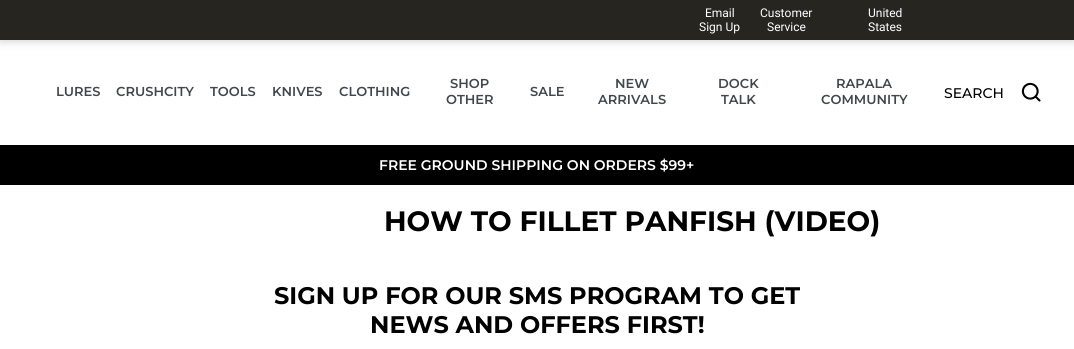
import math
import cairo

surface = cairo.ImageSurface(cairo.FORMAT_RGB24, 1074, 349)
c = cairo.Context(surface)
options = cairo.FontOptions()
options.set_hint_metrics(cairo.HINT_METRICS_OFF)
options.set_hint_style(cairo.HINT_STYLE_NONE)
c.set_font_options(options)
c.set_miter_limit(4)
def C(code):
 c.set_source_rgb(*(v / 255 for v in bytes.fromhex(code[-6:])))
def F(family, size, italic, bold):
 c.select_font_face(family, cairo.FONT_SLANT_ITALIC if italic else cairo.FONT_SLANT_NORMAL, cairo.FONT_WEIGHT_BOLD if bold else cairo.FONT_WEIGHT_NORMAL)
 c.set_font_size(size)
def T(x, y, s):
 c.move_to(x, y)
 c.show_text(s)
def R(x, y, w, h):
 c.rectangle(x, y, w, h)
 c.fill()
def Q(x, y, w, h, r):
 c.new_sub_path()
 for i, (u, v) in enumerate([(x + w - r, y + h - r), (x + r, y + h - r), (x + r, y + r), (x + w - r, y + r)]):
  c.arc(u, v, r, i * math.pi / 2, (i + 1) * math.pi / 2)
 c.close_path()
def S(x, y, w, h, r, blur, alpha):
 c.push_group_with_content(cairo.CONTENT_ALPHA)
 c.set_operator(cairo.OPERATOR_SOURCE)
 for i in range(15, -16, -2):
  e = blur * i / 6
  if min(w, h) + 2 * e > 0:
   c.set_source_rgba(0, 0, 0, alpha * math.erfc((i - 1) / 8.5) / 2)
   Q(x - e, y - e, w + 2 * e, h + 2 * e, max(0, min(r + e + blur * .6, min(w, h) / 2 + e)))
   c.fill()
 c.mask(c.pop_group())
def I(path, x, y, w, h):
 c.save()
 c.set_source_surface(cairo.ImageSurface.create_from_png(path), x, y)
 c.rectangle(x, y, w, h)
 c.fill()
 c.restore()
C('ffffff')
c.paint()
C('323232')
S(0,2,1074,40,0,4,.2)
C('27251f')
R(0,0,1074,40)
F('Roboto',12,0,0)
C('ffffff')
T(705,17,'Email')
T(699,31,'Sign Up')
T(760,17,'Customer')
T(767,31,'Service')
T(868,17,'United')
T(868,31,'States')
F('Montserrat Thin',13,0,0)
C('43464e')
T(56,96,'LURES')
T(116,96,'CRUSHCITY')
T(210,96,'TOOLS')
T(272,96,'KNIVES')
T(339,96,'CLOTHING')
T(450,88,'SHOP')
T(446,104,'OTHER')
T(530,96,'SALE')
T(615,88,'NEW')
T(598,104,'ARRIVALS')
T(718,88,'DOCK')
T(721,104,'TALK')
T(836,88,'RAPALA')
T(821,104,'COMMUNITY')
F('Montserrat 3 Thin',14,0,0)
C('000000')
T(944,98,'SEARCH')
I('1.png',1021,82,20,20)
R(0,145,1074,40)
F('Montserrat Thin',14,0,0)
C('ffffff')
T(379,170,'FREE GROUND SHIPPING ON ORDERS $99+')
F('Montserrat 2 Thin',28,0,0)
C('000000')
T(384,231,'HOW TO FILLET PANFISH (VIDEO)')
F('Montserrat 2 Thin',24,0,0)
T(274,304,'SIGN UP FOR OUR SMS PROGRAM TO GET')
T(370,333,'NEWS AND OFFERS FIRST!')
surface.write_to_png('o.png')
